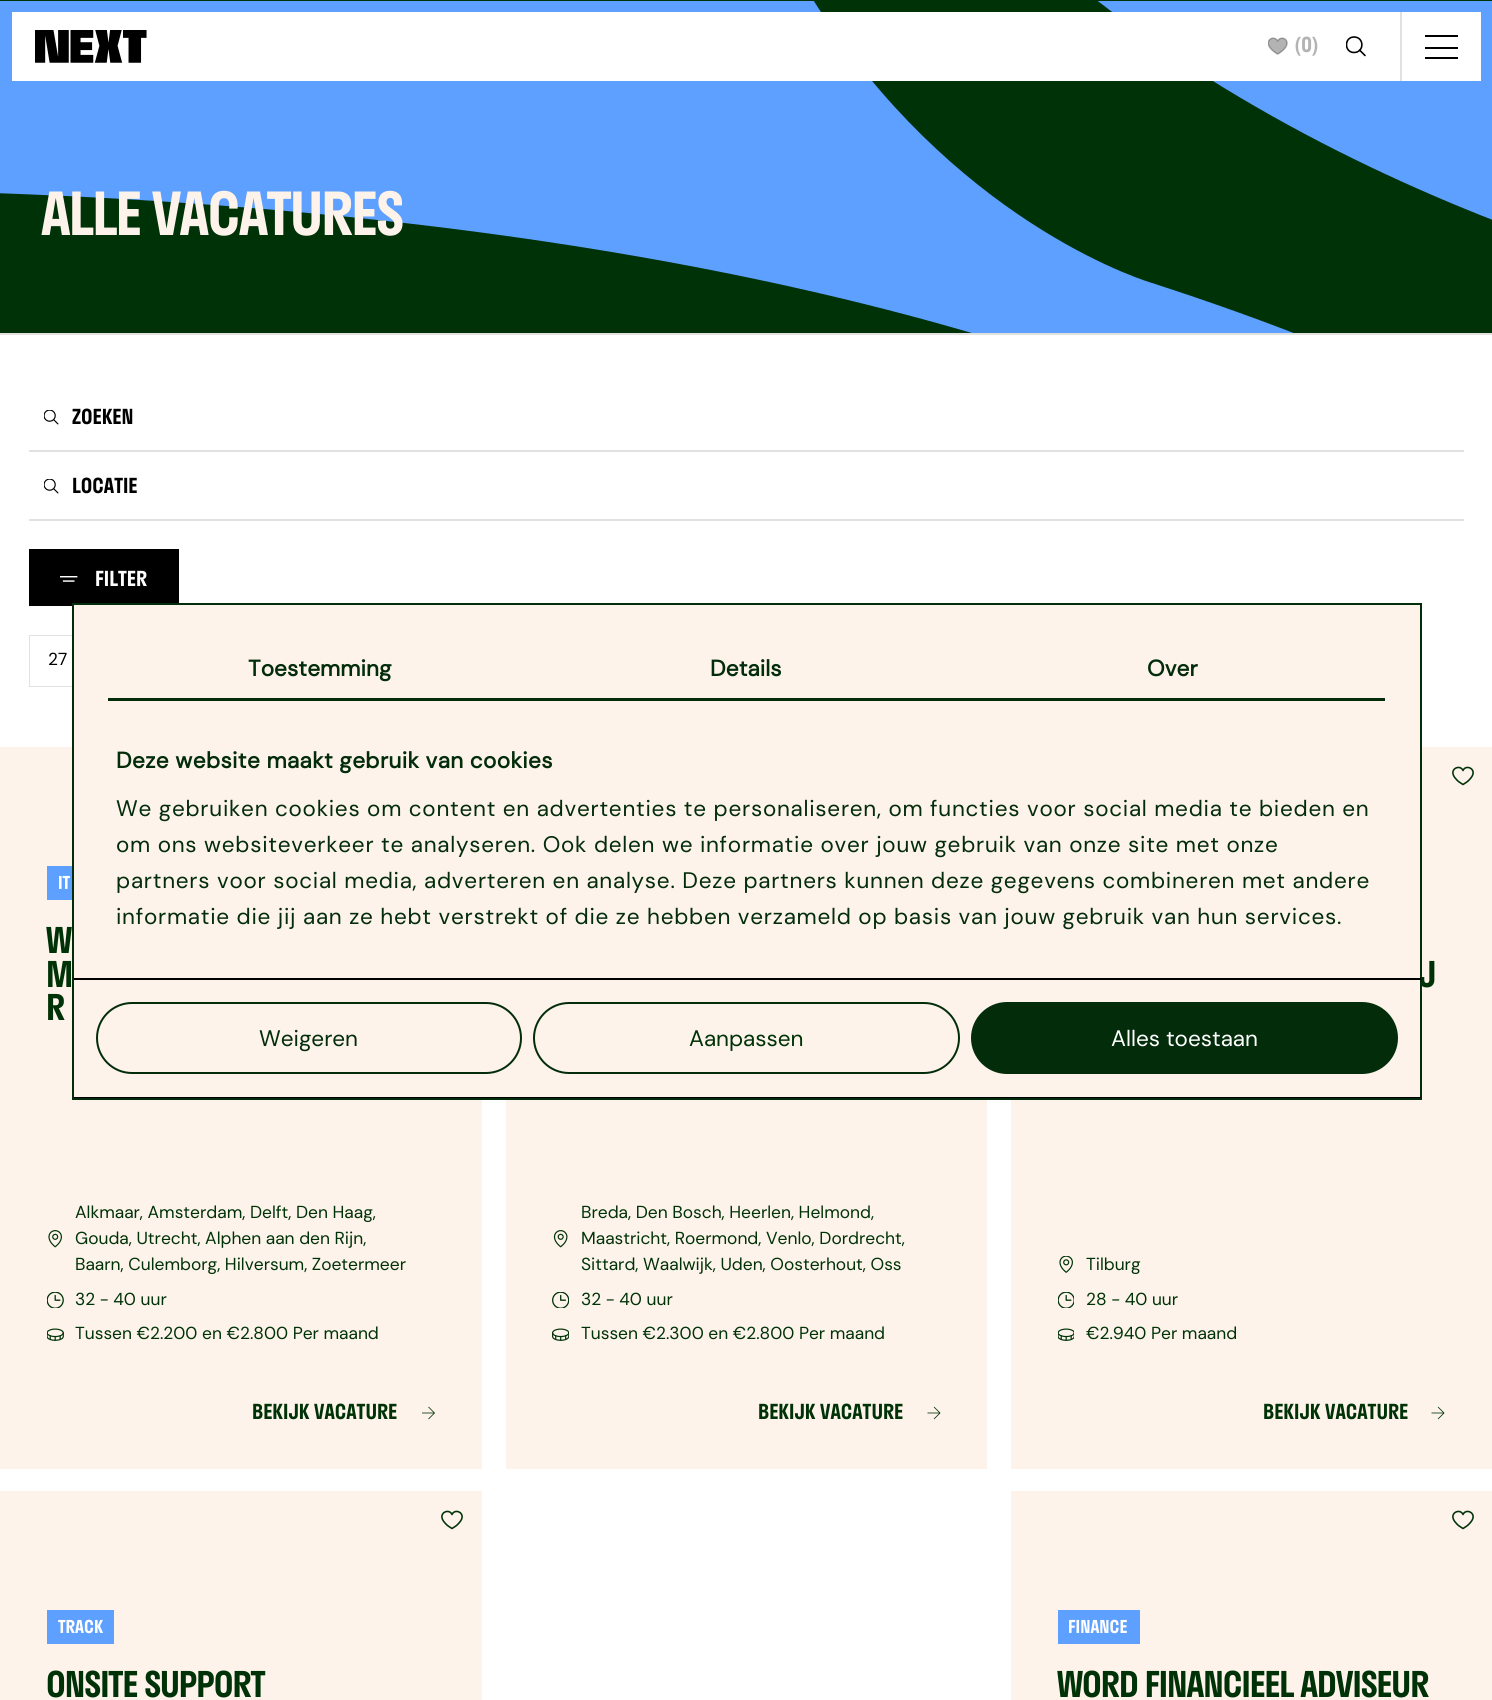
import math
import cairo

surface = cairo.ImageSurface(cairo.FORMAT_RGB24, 1492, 1700)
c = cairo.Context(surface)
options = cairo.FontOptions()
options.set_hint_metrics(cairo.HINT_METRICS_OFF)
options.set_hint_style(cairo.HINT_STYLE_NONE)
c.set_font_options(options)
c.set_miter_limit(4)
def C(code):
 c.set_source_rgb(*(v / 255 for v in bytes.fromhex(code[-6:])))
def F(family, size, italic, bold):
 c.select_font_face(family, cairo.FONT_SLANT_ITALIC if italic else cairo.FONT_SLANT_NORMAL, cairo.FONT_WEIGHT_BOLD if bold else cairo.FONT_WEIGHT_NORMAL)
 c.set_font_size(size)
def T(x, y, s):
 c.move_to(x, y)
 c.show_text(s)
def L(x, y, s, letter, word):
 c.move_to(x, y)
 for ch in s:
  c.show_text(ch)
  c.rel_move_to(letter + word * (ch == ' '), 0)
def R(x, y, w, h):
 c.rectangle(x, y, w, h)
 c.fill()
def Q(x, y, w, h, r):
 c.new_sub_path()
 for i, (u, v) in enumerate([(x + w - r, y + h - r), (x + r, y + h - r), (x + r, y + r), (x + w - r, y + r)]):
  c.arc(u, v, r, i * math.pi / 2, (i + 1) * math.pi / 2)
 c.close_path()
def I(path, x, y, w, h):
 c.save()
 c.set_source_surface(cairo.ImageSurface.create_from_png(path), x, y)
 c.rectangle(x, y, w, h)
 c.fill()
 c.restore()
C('ffffff')
c.paint()
C('003207')
R(0,0,1492,333)
c.save()
c.rectangle(0,1,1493,332)
c.clip()
C('5da0ff')
c.new_path()
c.move_to(752,-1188)
c.curve_to(393,153,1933,338,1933,338)
c.line_to(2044,-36)
c.curve_to(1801,-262,1230,-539,797,-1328)
c.curve_to(364,-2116,-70,-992,-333,-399)
c.curve_to(-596,193,-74,191,-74,191)
c.curve_to(1441,228,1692,778,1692,778)
c.curve_to(-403,216,-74,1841,-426,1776)
c.curve_to(-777,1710,85,660,85,660)
c.curve_to(-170,620,-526,430,-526,430)
c.curve_to(-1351,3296,1365,1271,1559,1084)
c.curve_to(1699,948,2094,588,1152,283)
c.curve_to(1152,283,415,70,753,-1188)
c.close_path()
c.fill()
c.restore()
C('ffffff')
R(12,12,1469,69)
I('1.png',35,30,112,33)
I('2.png',1268,37,20,18)
F('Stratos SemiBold',20.25,0,0)
C('b3b3b3')
T(1294,52,'(0)')
c.save()
c.rectangle(1346,36,21,21)
c.clip()
c.new_path()
c.move_to(1354,52.5)
c.curve_to(1364.5,52.5,1364.5,37,1354,37)
c.curve_to(1344,37,1344,52.5,1354,52.5)
c.close_path()
c.move_to(1359.5,50)
c.line_to(1365,55.5)
C('000000')
c.set_line_width(1.6)
c.set_line_cap(cairo.LINE_CAP_ROUND)
c.set_line_join(cairo.LINE_JOIN_ROUND)
c.stroke()
c.restore()
C('e1e1e1')
R(1400,12,2,69)
C('000000')
R(1425,35,33,2)
R(1425,47,33,2)
R(1425,57,33,2)
C('e1e1e1')
R(0,333,1492,2)
F('Stratos SemiBold',58,0,0)
C('fdf3ea')
L(41,235,'ALLE VACATURES',-1.75,0)
I('3.png',44,410,15,15)
C('e1e1e1')
R(29,450,1435,2)
F('Stratos SemiBold',20.25,0,0)
C('000000')
T(72,424,'ZOEKEN')
I('3.png',44,479,15,15)
C('e1e1e1')
R(29,519,1435,2)
C('000000')
T(72,493,'LOCATIE')
R(29,549,150,57)
I('4.png',60,576,18,6)
C('ffffff')
T(95,586,'FILTER')
c.rectangle(30,636,607,50)
C('e1e1e1')
c.stroke()
C('ffffff')
R(30,636,42,50)
F('DM Sans',17.4,0,0)
C('000000')
T(48,665,'27')
C('fdf3ea')
R(0,747,482,722)
C('5da0ff')
R(47,866,25,34)
F('Stratos SemiBold',17.4,0,0)
C('ffffff')
T(58,889,'IT')
F('Stratos SemiBold',34.75,0,0)
C('003207')
L(46,953,'W',-1,0)
L(46,987,'M',-1,0)
L(46,1020,'R',-1,0)
I('5.png',48,1230,14,18)
F('DM Sans',17.4,0,0)
T(75,1218,'Alkmaar, Amsterdam, Delft, Den Haag,')
T(75,1244,'Gouda, Utrecht, Alphen aan den Rijn,')
T(75,1270,'Baarn, Culemborg, Hilversum, Zoetermeer')
I('6.png',47,1292,17,16)
T(75,1305,'32 - 40 uur')
I('7.png',47,1328,17,13)
T(75,1339,'Tussen €2.200 en €2.800 Per maand')
F('Stratos SemiBold',20.25,0,0)
T(252,1419,'BEKIJK VACATURE')
c.new_path()
c.move_to(434.5,1413)
c.line_to(422,1413)
c.move_to(428.5,1407)
c.line_to(434.5,1413)
c.line_to(428.5,1419)
c.set_line_width(.8)
c.stroke()
C('fdf3ea')
R(506,1100,481,369)
I('8.png',553,1230,15,18)
F('DM Sans',17.4,0,0)
C('003207')
T(581,1218,'Breda, Den Bosch, Heerlen, Helmond,')
T(581,1244,'Maastricht, Roermond, Venlo, Dordrecht,')
T(581,1270,'Sittard, Waalwijk, Uden, Oosterhout, Oss')
I('9.png',552,1292,17,16)
T(581,1305,'32 - 40 uur')
I('10.png',552,1328,17,13)
T(581,1339,'Tussen €2.300 en €2.800 Per maand')
F('Stratos SemiBold',20.25,0,0)
T(758,1419,'BEKIJK VACATURE')
c.new_path()
c.move_to(940,1413)
c.line_to(927.5,1413)
c.move_to(934,1407)
c.line_to(940,1413)
c.line_to(934,1419)
c.stroke()
C('fdf3ea')
R(1011,747,481,722)
c.new_path()
c.move_to(1463,784.5)
c.curve_to(1460.5,783,1458,781.5,1456,779)
c.curve_to(1447,769.5,1460,763.5,1463,770.5)
c.curve_to(1466,763.5,1479,769.5,1470,779)
c.curve_to(1468,781.5,1465.5,783,1463,784.5)
c.close_path()
C('003207')
c.set_line_width(1.6)
c.set_line_cap(cairo.LINE_CAP_ROUND)
c.set_line_join(cairo.LINE_JOIN_ROUND)
c.stroke()
F('Stratos SemiBold',34.75,0,0)
L(1418,987,'J',-1,0)
I('11.png',1059,1256,14,17)
F('DM Sans',17.4,0,0)
T(1086,1270,'Tilburg')
I('12.png',1058,1292,16,16)
T(1086,1305,'28 - 40 uur')
I('13.png',1058,1328,16,13)
T(1086,1339,'€2.940 Per maand')
F('Stratos SemiBold',20.25,0,0)
T(1263,1419,'BEKIJK VACATURE')
c.new_path()
c.move_to(1444,1413)
c.line_to(1431.5,1413)
c.move_to(1438,1407)
c.line_to(1444,1413)
c.line_to(1438,1419)
c.set_line_width(.8)
c.set_line_cap(cairo.LINE_CAP_BUTT)
c.set_line_join(cairo.LINE_JOIN_MITER)
c.stroke()
C('fdf3ea')
R(0,1491,482,209)
c.new_path()
c.move_to(452,1528.5)
c.curve_to(449.5,1527,447,1525.5,445,1523)
c.curve_to(436,1513.5,449,1507.5,452,1514.5)
c.curve_to(455,1507.5,468,1513.5,459,1523)
c.curve_to(457,1525.5,454.5,1527,452,1528.5)
c.close_path()
C('003207')
c.set_line_width(1.6)
c.set_line_cap(cairo.LINE_CAP_ROUND)
c.set_line_join(cairo.LINE_JOIN_ROUND)
c.stroke()
C('5da0ff')
R(47,1610,67,34)
F('Stratos SemiBold',17.4,0,0)
C('ffffff')
T(58,1633,'TRACK')
F('Stratos SemiBold',34.75,0,0)
C('003207')
L(46,1697,'ONSITE SUPPORT',-1,0)
C('fdf3ea')
R(1011,1491,481,209)
c.new_path()
c.move_to(1463,1528.5)
c.curve_to(1460.5,1527,1458,1525.5,1456,1523)
c.curve_to(1447,1513.5,1460,1507.5,1463,1514.5)
c.curve_to(1466,1507.5,1479,1513.5,1470,1523)
c.curve_to(1468,1525.5,1465.5,1527,1463,1528.5)
c.close_path()
C('003207')
c.stroke()
C('5da0ff')
R(1058,1610,82,34)
F('Stratos SemiBold',17.4,0,0)
C('ffffff')
T(1068,1633,'FINANCE')
F('Stratos SemiBold',34.75,0,0)
C('003207')
L(1057,1697,'WORD FINANCIEEL ADVISEUR',-1,0)
C('fdf3ea')
R(74,605,1346,492)
c.rectangle(73,604,1348,495)
C('032c0b')
c.set_line_width(2)
c.set_line_cap(cairo.LINE_CAP_BUTT)
c.set_line_join(cairo.LINE_JOIN_MITER)
c.stroke()
R(108,698,1277,3)
F('DM Sans',22.5,0,1)
L(248,676,'Toestemming',.1,0)
L(710,676,'Details',.1,0)
L(1147,676,'Over',.1,0)
C('000000')
R(74,978,1347,2)
C('032c0b')
L(116,768,'Deze website maakt gebruik van cookies',.4,0)
F('DM Sans',22.5,0,0)
L(116,816,'We gebruiken cookies om content en advertenties te personaliseren, om functies voor social media te bieden en',.75,0)
L(116,852,'om ons websiteverkeer te analyseren. Ook delen we informatie over jouw gebruik van onze site met onze',.75,0)
L(116,888,'partners voor social media, adverteren en analyse. Deze partners kunnen deze gegevens combineren met andere',.75,0)
L(116,924,'informatie die jij aan ze hebt verstrekt of die ze hebben verzameld op basis van jouw gebruik van hun services.',.75,0)
C('000000')
R(74,1097,1347,1)
Q(97,1003,424,70,35)
C('032c0b')
c.stroke()
T(259,1046,'Weigeren')
Q(534,1003,425,70,35)
c.stroke()
C('003207')
T(689,1046,'Aanpassen')
C('032c0b')
Q(972,1003,425,70,35)
c.fill_preserve()
c.stroke()
C('ffffff')
T(1111,1046,'Alles toestaan')
surface.write_to_png('o.png')
